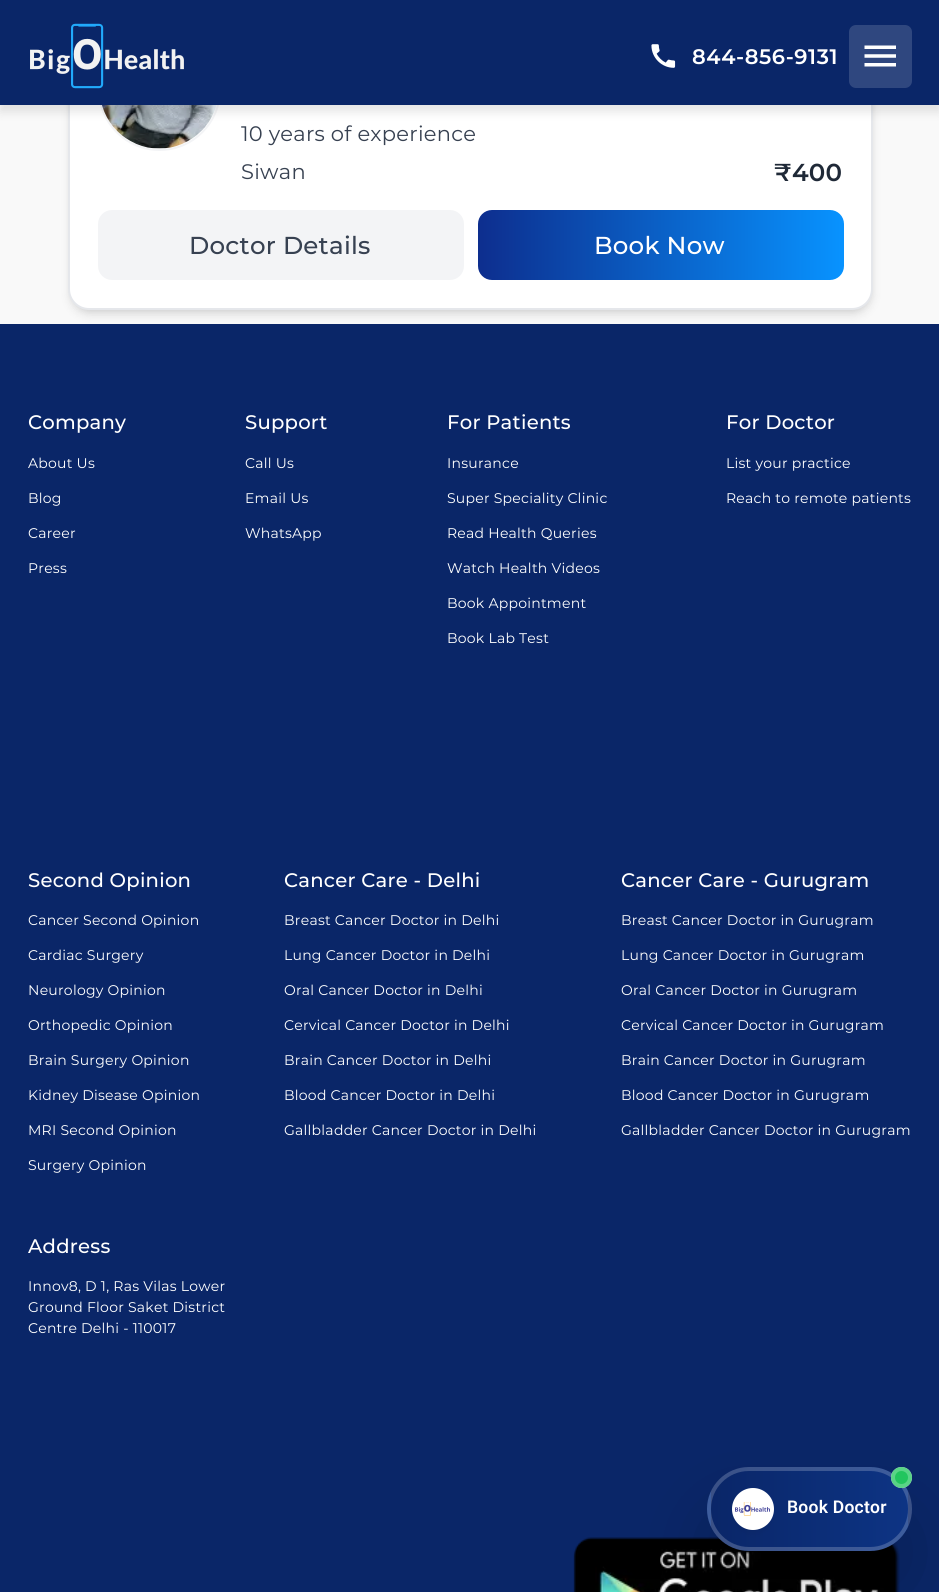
import math
import cairo

surface = cairo.ImageSurface(cairo.FORMAT_RGB24, 939, 1592)
c = cairo.Context(surface)
options = cairo.FontOptions()
options.set_hint_metrics(cairo.HINT_METRICS_OFF)
options.set_hint_style(cairo.HINT_STYLE_NONE)
c.set_font_options(options)
c.set_miter_limit(4)
def C(code):
 c.set_source_rgb(*(v / 255 for v in bytes.fromhex(code[-6:])))
def F(family, size, italic, bold):
 c.select_font_face(family, cairo.FONT_SLANT_ITALIC if italic else cairo.FONT_SLANT_NORMAL, cairo.FONT_WEIGHT_BOLD if bold else cairo.FONT_WEIGHT_NORMAL)
 c.set_font_size(size)
def L(x, y, s, letter, word):
 c.move_to(x, y)
 for ch in s:
  c.show_text(ch)
  c.rel_move_to(letter + word * (ch == ' '), 0)
def R(x, y, w, h):
 c.rectangle(x, y, w, h)
 c.fill()
def Q(x, y, w, h, r):
 c.new_sub_path()
 for i, (u, v) in enumerate([(x + w - r, y + h - r), (x + r, y + h - r), (x + r, y + r), (x + w - r, y + r)]):
  c.arc(u, v, r, i * math.pi / 2, (i + 1) * math.pi / 2)
 c.close_path()
def S(x, y, w, h, r, blur, alpha):
 c.push_group_with_content(cairo.CONTENT_ALPHA)
 c.set_operator(cairo.OPERATOR_SOURCE)
 for i in range(15, -16, -2):
  e = blur * i / 6
  if min(w, h) + 2 * e > 0:
   c.set_source_rgba(0, 0, 0, alpha * math.erfc((i - 1) / 8.5) / 2)
   Q(x - e, y - e, w + 2 * e, h + 2 * e, max(0, min(r + e + blur * .6, min(w, h) / 2 + e)))
   c.fill()
 c.mask(c.pop_group())
def I(path, x, y, w, h):
 c.save()
 c.set_source_surface(cairo.ImageSurface.create_from_png(path), x, y)
 c.rectangle(x, y, w, h)
 c.fill()
 c.restore()
C('f9f9f9')
c.paint()
C('000000')
S(72,5,798,305,18,3.5,.1)
C('0a2668')
R(0,324,939,1268)
C('000000')
S(70,7,802,308,19,5,.1)
C('ffffff')
Q(69,-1,803,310,20)
c.fill_preserve()
C('e5e7eb')
c.stroke()
c.arc(159.5,89.5,60.5,0,2 * math.pi)
C('f3f4f6')
c.stroke()
I('4.png',102,105,115,44)
C('000000')
S(0,7,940,105,0,5,.1)
C('0a2668')
R(0,0,939,105)
I('1.png',30,23,154,66)
I('2.png',651,44,25,24)
F('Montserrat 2 SemiBold',21,0,0)
C('ffffff')
L(692,64,'844-856-9131',.6,0)
C('2f477f')
Q(849,25,63,63,7)
c.fill()
I('3.png',864,45,32,22)
F('Montserrat',21,0,0)
C('374151')
L(241,141,'10 years of experience',.25,0)
L(241,179,'Siwan',.25,0)
F('Montserrat SemiBold',24.5,0,0)
C('1f2937')
L(774,181,'₹400',.25,0)
C('f3f4f6')
Q(98,210,366,70,14)
c.fill()
F('Montserrat Medium',24.5,0,0)
C('374151')
L(189,254,'Doctor Details',.25,0)
gradient = cairo.LinearGradient(478,245,844,245)
gradient.add_color_stop_rgba(0,0.051,0.18,0.557,1)
gradient.add_color_stop_rgba(1,0.031,0.576,1,1)
c.set_source(gradient)
Q(478,210,366,70,14)
c.fill()
C('ffffff')
L(594,254,'Book Now',.25,0)
I('6.png',573,1537,327,55)
c.save()
c.set_fill_rule(cairo.FILL_RULE_EVEN_ODD)
c.new_path()
c.move_to(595,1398)
c.line_to(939,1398)
c.line_to(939,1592)
c.line_to(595,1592)
c.close_path()
c.move_to(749,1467)
c.line_to(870,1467)
c.curve_to(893,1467,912,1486,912,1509)
c.curve_to(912,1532,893,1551,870,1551)
c.line_to(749,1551)
c.curve_to(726,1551,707,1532,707,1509)
c.curve_to(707,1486,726,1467,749,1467)
c.close_path()
c.clip()
C('000000')
S(728,1531,163,42,21,44,.25)
c.restore()
c.save()
Q(707,1467,205,84,42)
c.clip()
gradient = cairo.LinearGradient(513,1509,711,1509)
gradient.add_color_stop_rgba(0,0.039,0.149,0.408,1)
gradient.add_color_stop_rgba(1,0.051,0.204,0.518,1)
c.set_source(gradient)
R(707,1491,4,36)
gradient = cairo.LinearGradient(711,1509,908,1509)
gradient.add_color_stop_rgba(0,0.039,0.149,0.408,1)
gradient.add_color_stop_rgba(1,0.051,0.204,0.518,1)
c.set_source(gradient)
R(711,1467,197,84)
c.restore()
Q(709,1469,201,80,40)
c.set_source_rgba(1,1,1,0.2)
c.set_line_width(4)
c.stroke()
C('22c55e')
c.arc(901.5,1477.5,8.5,0,2 * math.pi)
c.fill_preserve()
C('ffffff')
c.stroke()
c.set_source_rgba(0.133,0.773,0.369,0.75)
c.arc(901.5,1477.5,10.5,0,2 * math.pi)
c.fill()
C('000000')
S(739,1502,28,28,14,5,.1)
C('ffffff')
c.arc(753,1509,21,0,2 * math.pi)
c.fill()
I('5.png',735,1502,35,14)
F('Roboto SemiBold',17.5,0,0)
L(787,1513,'Book Doctor',.25,0)
F('Montserrat Medium',19.6,0,0)
L(28,429,'Company',.25,0)
F('Montserrat',14,0,0)
L(28,468,'About Us',.25,0)
L(28,503,'Blog',.25,0)
L(28,538,'Career',.25,0)
L(28,573,'Press',.25,0)
F('Montserrat Medium',19.6,0,0)
L(245,429,'Support',.25,0)
F('Montserrat',14,0,0)
L(245,468,'Call Us',.25,0)
L(245,503,'Email Us',.25,0)
L(245,538,'WhatsApp',.25,0)
F('Montserrat Medium',19.6,0,0)
L(447,429,'For Patients',.25,0)
F('Montserrat',14,0,0)
L(447,468,'Insurance',.25,0)
L(447,503,'Super Speciality Clinic',.25,0)
L(447,538,'Read Health Queries',.25,0)
L(447,573,'Watch Health Videos',.25,0)
L(447,608,'Book Appointment',.25,0)
L(447,643,'Book Lab Test',.25,0)
F('Montserrat Medium',19.6,0,0)
L(726,429,'For Doctor',.25,0)
F('Montserrat',14,0,0)
L(726,468,'List your practice',.25,0)
L(726,503,'Reach to remote patients',.25,0)
F('Montserrat Medium',19.6,0,0)
L(28,887,'Second Opinion',.25,0)
F('Montserrat',14,0,0)
L(28,925,'Cancer Second Opinion',.25,0)
L(28,960,'Cardiac Surgery',.25,0)
L(28,995,'Neurology Opinion',.25,0)
L(28,1030,'Orthopedic Opinion',.25,0)
L(28,1065,'Brain Surgery Opinion',.25,0)
L(28,1100,'Kidney Disease Opinion',.25,0)
L(28,1135,'MRI Second Opinion',.25,0)
L(28,1170,'Surgery Opinion',.25,0)
F('Montserrat Medium',19.6,0,0)
L(284,887,'Cancer Care - Delhi',.25,0)
F('Montserrat',14,0,0)
L(284,925,'Breast Cancer Doctor in Delhi',.25,0)
L(284,960,'Lung Cancer Doctor in Delhi',.25,0)
L(284,995,'Oral Cancer Doctor in Delhi',.25,0)
L(284,1030,'Cervical Cancer Doctor in Delhi',.25,0)
L(284,1065,'Brain Cancer Doctor in Delhi',.25,0)
L(284,1100,'Blood Cancer Doctor in Delhi',.25,0)
L(284,1135,'Gallbladder Cancer Doctor in Delhi',.25,0)
F('Montserrat Medium',19.6,0,0)
L(621,887,'Cancer Care - Gurugram',.25,0)
F('Montserrat',14,0,0)
L(621,925,'Breast Cancer Doctor in Gurugram',.25,0)
L(621,960,'Lung Cancer Doctor in Gurugram',.25,0)
L(621,995,'Oral Cancer Doctor in Gurugram',.25,0)
L(621,1030,'Cervical Cancer Doctor in Gurugram',.25,0)
L(621,1065,'Brain Cancer Doctor in Gurugram',.25,0)
L(621,1100,'Blood Cancer Doctor in Gurugram',.25,0)
L(621,1135,'Gallbladder Cancer Doctor in Gurugram',.25,0)
F('Montserrat Medium',19.6,0,0)
L(28,1253,'Address',.25,0)
F('Montserrat',14,0,0)
L(28,1291,'Innov8, D 1, Ras Vilas Lower',.25,0)
L(28,1312,'Ground Floor Saket District',.25,0)
L(28,1333,'Centre Delhi - 110017',.25,0)
surface.write_to_png('o.png')
